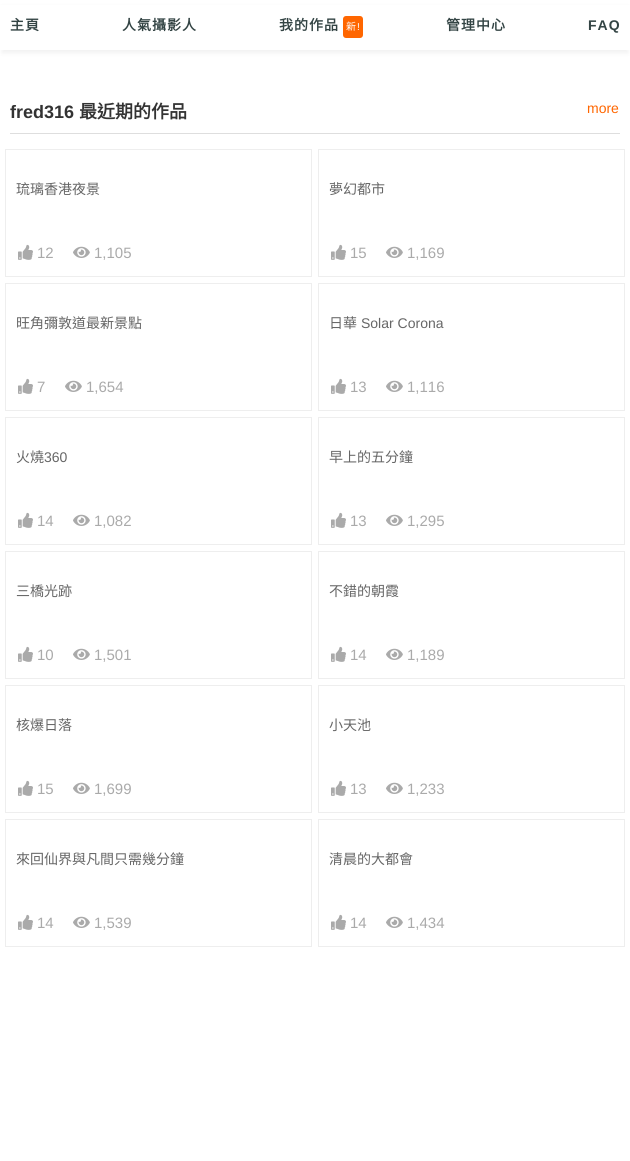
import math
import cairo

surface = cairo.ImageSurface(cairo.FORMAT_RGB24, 630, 1161)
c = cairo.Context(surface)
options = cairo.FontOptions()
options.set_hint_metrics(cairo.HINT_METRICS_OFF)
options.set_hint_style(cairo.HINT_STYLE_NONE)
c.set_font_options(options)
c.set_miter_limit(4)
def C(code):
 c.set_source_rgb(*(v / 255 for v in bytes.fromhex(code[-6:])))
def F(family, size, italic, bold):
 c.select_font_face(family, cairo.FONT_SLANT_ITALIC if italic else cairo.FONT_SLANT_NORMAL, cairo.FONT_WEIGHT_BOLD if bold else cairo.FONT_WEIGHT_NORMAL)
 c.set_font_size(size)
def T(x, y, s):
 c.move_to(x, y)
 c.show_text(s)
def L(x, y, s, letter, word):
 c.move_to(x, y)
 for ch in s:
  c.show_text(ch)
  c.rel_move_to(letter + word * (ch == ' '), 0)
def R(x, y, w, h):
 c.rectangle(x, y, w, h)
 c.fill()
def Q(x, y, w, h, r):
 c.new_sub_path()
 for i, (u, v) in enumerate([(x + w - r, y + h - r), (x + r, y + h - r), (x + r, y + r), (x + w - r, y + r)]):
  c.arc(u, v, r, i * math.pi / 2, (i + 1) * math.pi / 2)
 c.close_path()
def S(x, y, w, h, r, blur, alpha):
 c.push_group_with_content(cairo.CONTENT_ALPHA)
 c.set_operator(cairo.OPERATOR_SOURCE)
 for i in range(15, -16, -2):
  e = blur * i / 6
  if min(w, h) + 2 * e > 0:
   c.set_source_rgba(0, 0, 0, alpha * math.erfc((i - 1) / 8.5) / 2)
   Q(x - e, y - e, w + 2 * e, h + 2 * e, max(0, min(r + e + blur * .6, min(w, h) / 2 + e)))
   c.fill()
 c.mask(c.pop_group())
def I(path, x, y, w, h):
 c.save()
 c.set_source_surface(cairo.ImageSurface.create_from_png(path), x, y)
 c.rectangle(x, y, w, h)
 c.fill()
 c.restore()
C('ffffff')
c.paint()
C('000000')
S(2,7,626,46,0,2.5,.06)
C('ffffff')
R(0,5,630,45)
F('Noto Sans CJK HK',14,0,1)
C('334444')
L(10,30,'主頁',1,0)
L(122,30,'人氣攝影人',1,0)
L(279,30,'我的作品',1,0)
C('ff6600')
Q(343,16,20,22,3)
c.fill()
F('Noto Sans CJK HK',10,0,0)
C('ffffff')
L(346,30,'新',1,0)
F('Liberation Sans',10,0,0)
L(357,30,'!',1,0)
F('Noto Sans CJK HK',14,0,1)
C('334444')
L(446,30,'管理中心',1,0)
F('Liberation Sans',14,0,1)
L(588,30,'FAQ',1,0)
C('dedede')
R(10,133,610,1)
F('Liberation Sans',18,0,1)
C('333333')
T(10,118,'fred316')
F('Noto Sans CJK HK',18,0,1)
T(79,118,'最近期的作品')
F('Liberation Sans',14,0,0)
C('ff6600')
T(587,113,'more')
c.rectangle(5.5,149.5,306,127)
C('eeeeee')
c.set_line_width(1)
c.stroke()
F('Noto Sans CJK HK',14,0,0)
C('666666')
T(16,194,'琉璃香港夜景')
I('1.png',18,244,15,16)
F('Liberation Sans',15,0,0)
C('aaaaaa')
T(37,258,'12')
I('2.png',73,246,17,12)
T(94,258,'1,105')
c.rectangle(318.5,149.5,306,127)
C('eeeeee')
c.stroke()
F('Noto Sans CJK HK',14,0,0)
C('666666')
T(329,194,'夢幻都市')
I('1.png',331,244,15,16)
F('Liberation Sans',15,0,0)
C('aaaaaa')
T(350,258,'15')
I('2.png',386,246,17,12)
T(407,258,'1,169')
c.rectangle(5.5,283.5,306,127)
C('eeeeee')
c.stroke()
F('Noto Sans CJK HK',14,0,0)
C('666666')
T(16,328,'旺角彌敦道最新景點')
I('1.png',18,378,15,16)
F('Liberation Sans',15,0,0)
C('aaaaaa')
T(37,392,'7')
I('2.png',65,380,17,12)
T(86,392,'1,654')
c.rectangle(318.5,283.5,306,127)
C('eeeeee')
c.stroke()
F('Noto Sans CJK HK',14,0,0)
C('666666')
T(329,328,'日華')
F('Liberation Sans',14,0,0)
T(361,328,'Solar Corona')
I('1.png',331,378,15,16)
F('Liberation Sans',15,0,0)
C('aaaaaa')
T(350,392,'13')
I('2.png',386,380,17,12)
T(407,392,'1,116')
c.rectangle(5.5,417.5,306,127)
C('eeeeee')
c.stroke()
F('Noto Sans CJK HK',14,0,0)
C('666666')
T(16,462,'火燒')
F('Liberation Sans',14,0,0)
T(44,462,'360')
I('1.png',18,512,15,16)
F('Liberation Sans',15,0,0)
C('aaaaaa')
T(37,526,'14')
I('2.png',73,514,17,12)
T(94,526,'1,082')
c.rectangle(318.5,417.5,306,127)
C('eeeeee')
c.stroke()
F('Noto Sans CJK HK',14,0,0)
C('666666')
T(329,462,'早上的五分鐘')
I('1.png',331,512,15,16)
F('Liberation Sans',15,0,0)
C('aaaaaa')
T(350,526,'13')
I('2.png',386,514,17,12)
T(407,526,'1,295')
c.rectangle(5.5,551.5,306,127)
C('eeeeee')
c.stroke()
F('Noto Sans CJK HK',14,0,0)
C('666666')
T(16,596,'三橋光跡')
I('1.png',18,646,15,16)
F('Liberation Sans',15,0,0)
C('aaaaaa')
T(37,660,'10')
I('2.png',73,648,17,12)
T(94,660,'1,501')
c.rectangle(318.5,551.5,306,127)
C('eeeeee')
c.stroke()
F('Noto Sans CJK HK',14,0,0)
C('666666')
T(329,596,'不錯的朝霞')
I('1.png',331,646,15,16)
F('Liberation Sans',15,0,0)
C('aaaaaa')
T(350,660,'14')
I('2.png',386,648,17,12)
T(407,660,'1,189')
c.rectangle(5.5,685.5,306,127)
C('eeeeee')
c.stroke()
F('Noto Sans CJK HK',14,0,0)
C('666666')
T(16,730,'核爆日落')
I('1.png',18,780,15,16)
F('Liberation Sans',15,0,0)
C('aaaaaa')
T(37,794,'15')
I('2.png',73,782,17,12)
T(94,794,'1,699')
c.rectangle(318.5,685.5,306,127)
C('eeeeee')
c.stroke()
F('Noto Sans CJK HK',14,0,0)
C('666666')
T(329,730,'小天池')
I('1.png',331,780,15,16)
F('Liberation Sans',15,0,0)
C('aaaaaa')
T(350,794,'13')
I('2.png',386,782,17,12)
T(407,794,'1,233')
c.rectangle(5.5,819.5,306,127)
C('eeeeee')
c.stroke()
F('Noto Sans CJK HK',14,0,0)
C('666666')
T(16,864,'來回仙界與凡間只需幾分鐘')
I('1.png',18,914,15,16)
F('Liberation Sans',15,0,0)
C('aaaaaa')
T(37,928,'14')
I('2.png',73,916,17,12)
T(94,928,'1,539')
c.rectangle(318.5,819.5,306,127)
C('eeeeee')
c.stroke()
F('Noto Sans CJK HK',14,0,0)
C('666666')
T(329,864,'清晨的大都會')
I('1.png',331,914,15,16)
F('Liberation Sans',15,0,0)
C('aaaaaa')
T(350,928,'14')
I('2.png',386,916,17,12)
T(407,928,'1,434')
surface.write_to_png('o.png')
